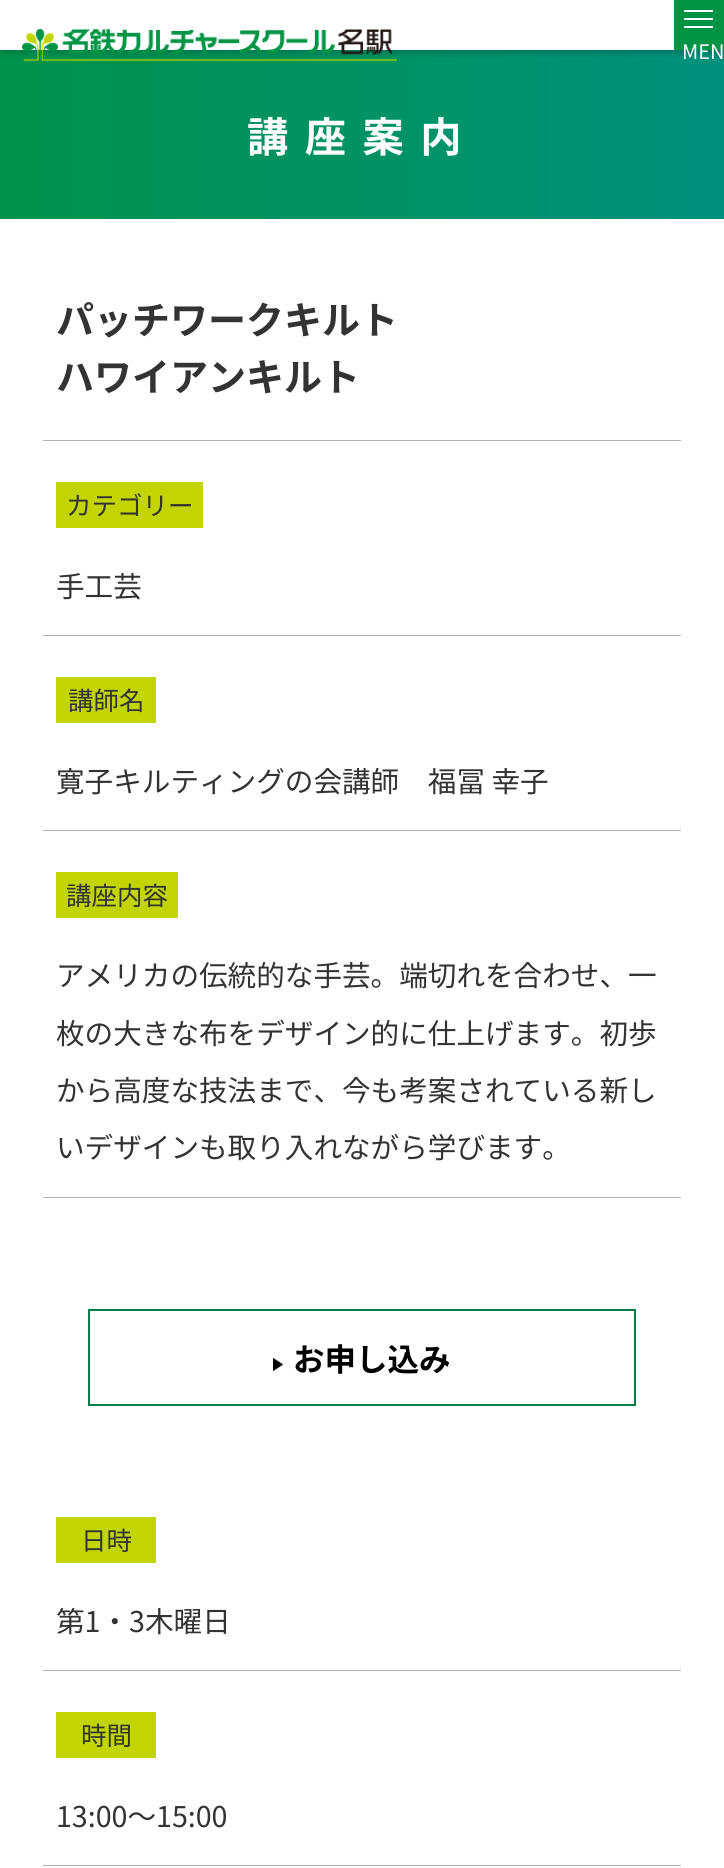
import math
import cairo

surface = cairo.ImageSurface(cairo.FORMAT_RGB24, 724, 1868)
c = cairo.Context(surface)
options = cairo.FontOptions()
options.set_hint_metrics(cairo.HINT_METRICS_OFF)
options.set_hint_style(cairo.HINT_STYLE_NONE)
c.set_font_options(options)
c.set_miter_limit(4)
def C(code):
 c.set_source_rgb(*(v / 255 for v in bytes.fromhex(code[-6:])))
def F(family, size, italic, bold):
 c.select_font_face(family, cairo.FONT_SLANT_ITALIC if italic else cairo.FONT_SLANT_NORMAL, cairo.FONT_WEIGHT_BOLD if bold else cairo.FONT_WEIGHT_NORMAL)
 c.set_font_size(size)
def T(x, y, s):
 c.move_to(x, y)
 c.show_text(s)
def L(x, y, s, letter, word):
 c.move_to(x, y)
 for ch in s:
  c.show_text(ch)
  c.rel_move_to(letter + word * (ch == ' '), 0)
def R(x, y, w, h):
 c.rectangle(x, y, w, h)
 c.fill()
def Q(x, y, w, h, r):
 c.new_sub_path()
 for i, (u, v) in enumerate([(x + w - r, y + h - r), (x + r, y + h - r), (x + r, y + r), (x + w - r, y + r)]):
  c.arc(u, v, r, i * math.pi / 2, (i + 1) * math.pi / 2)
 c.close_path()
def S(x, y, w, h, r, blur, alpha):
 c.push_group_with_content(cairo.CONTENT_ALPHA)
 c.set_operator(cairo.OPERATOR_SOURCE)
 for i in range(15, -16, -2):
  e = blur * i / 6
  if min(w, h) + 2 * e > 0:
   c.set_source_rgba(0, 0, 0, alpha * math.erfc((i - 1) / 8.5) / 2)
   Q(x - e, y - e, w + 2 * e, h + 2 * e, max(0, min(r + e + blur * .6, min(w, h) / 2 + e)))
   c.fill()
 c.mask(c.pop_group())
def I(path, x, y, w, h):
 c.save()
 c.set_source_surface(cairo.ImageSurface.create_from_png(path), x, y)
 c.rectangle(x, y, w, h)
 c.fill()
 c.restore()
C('ffffff')
c.paint()
gradient = cairo.LinearGradient(-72,135,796,134)
gradient.add_color_stop_rgba(0,0,0.576,0.278,1)
gradient.add_color_stop_rgba(1,0,0.569,0.506,1)
c.set_source(gradient)
R(0,50,724,169)
c.save()
c.rectangle(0,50,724,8)
c.clip()
C('000000')
S(3,5,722,48,0,4,.2)
c.restore()
I('1.png',22,29,375,34)
C('009444')
R(674,0,50,50)
C('ffffff')
R(684,10,29,2)
R(684,18,29,2)
R(684,26,29,2)
F('Noto Sans JP',20,0,0)
T(682,59,'MEN')
F('Noto Sans JP',41.25,0,1)
L(247,152,'講座案内',16.5,0)
C('b2b2b2')
R(43,440,638,1)
F('Noto Sans JP',38,0,1)
C('333333')
T(56,334,'パッチワークキルト')
T(56,391,'ハワイアンキルト')
C('b2b2b2')
R(43,635,638,1)
C('c2d500')
R(56,482,147,46)
F('Noto Sans JP',25.5,0,0)
C('333333')
T(66,515,'カテゴリー')
F('Noto Sans JP',28.6,0,0)
T(56,597,'手工芸')
C('b2b2b2')
R(43,830,638,1)
C('c2d500')
R(56,677,100,46)
F('Noto Sans JP',25.5,0,0)
C('333333')
T(68,710,'講師名')
F('Noto Sans JP',28.6,0,0)
T(56,792,'寛子キルティングの会講師　福冨 幸子')
C('b2b2b2')
R(43,1197,638,1)
C('c2d500')
R(56,872,122,46)
F('Noto Sans JP',25.5,0,0)
C('333333')
T(66,905,'講座内容')
F('Noto Sans JP',28.6,0,0)
T(56,986,'アメリカの伝統的な手芸。端切れを合わせ、一')
T(56,1044,'枚の大きな布をデザイン的に仕上げます。初歩')
T(56,1101,'から高度な技法まで、今も考案されている新し')
T(56,1158,'いデザインも取り入れながら学びます。')
c.rectangle(89,1310,546,95)
C('008046')
c.stroke()
I('2.png',273,1358,10,13)
F('Noto Sans JP',31.5,0,1)
C('000000')
T(293,1371,'お申し込み')
C('b2b2b2')
R(43,1670,638,1)
C('c2d500')
R(56,1517,100,46)
F('Noto Sans JP',25.5,0,0)
C('333333')
T(81,1550,'日時')
F('Noto Sans JP',28.6,0,0)
T(56,1632,'第1・3木曜日')
C('b2b2b2')
R(43,1865,638,1)
C('c2d500')
R(56,1712,100,46)
F('Noto Sans JP',25.5,0,0)
C('333333')
T(81,1745,'時間')
F('Noto Sans JP',28.6,0,0)
T(56,1827,'13:00～15:00')
surface.write_to_png('o.png')
